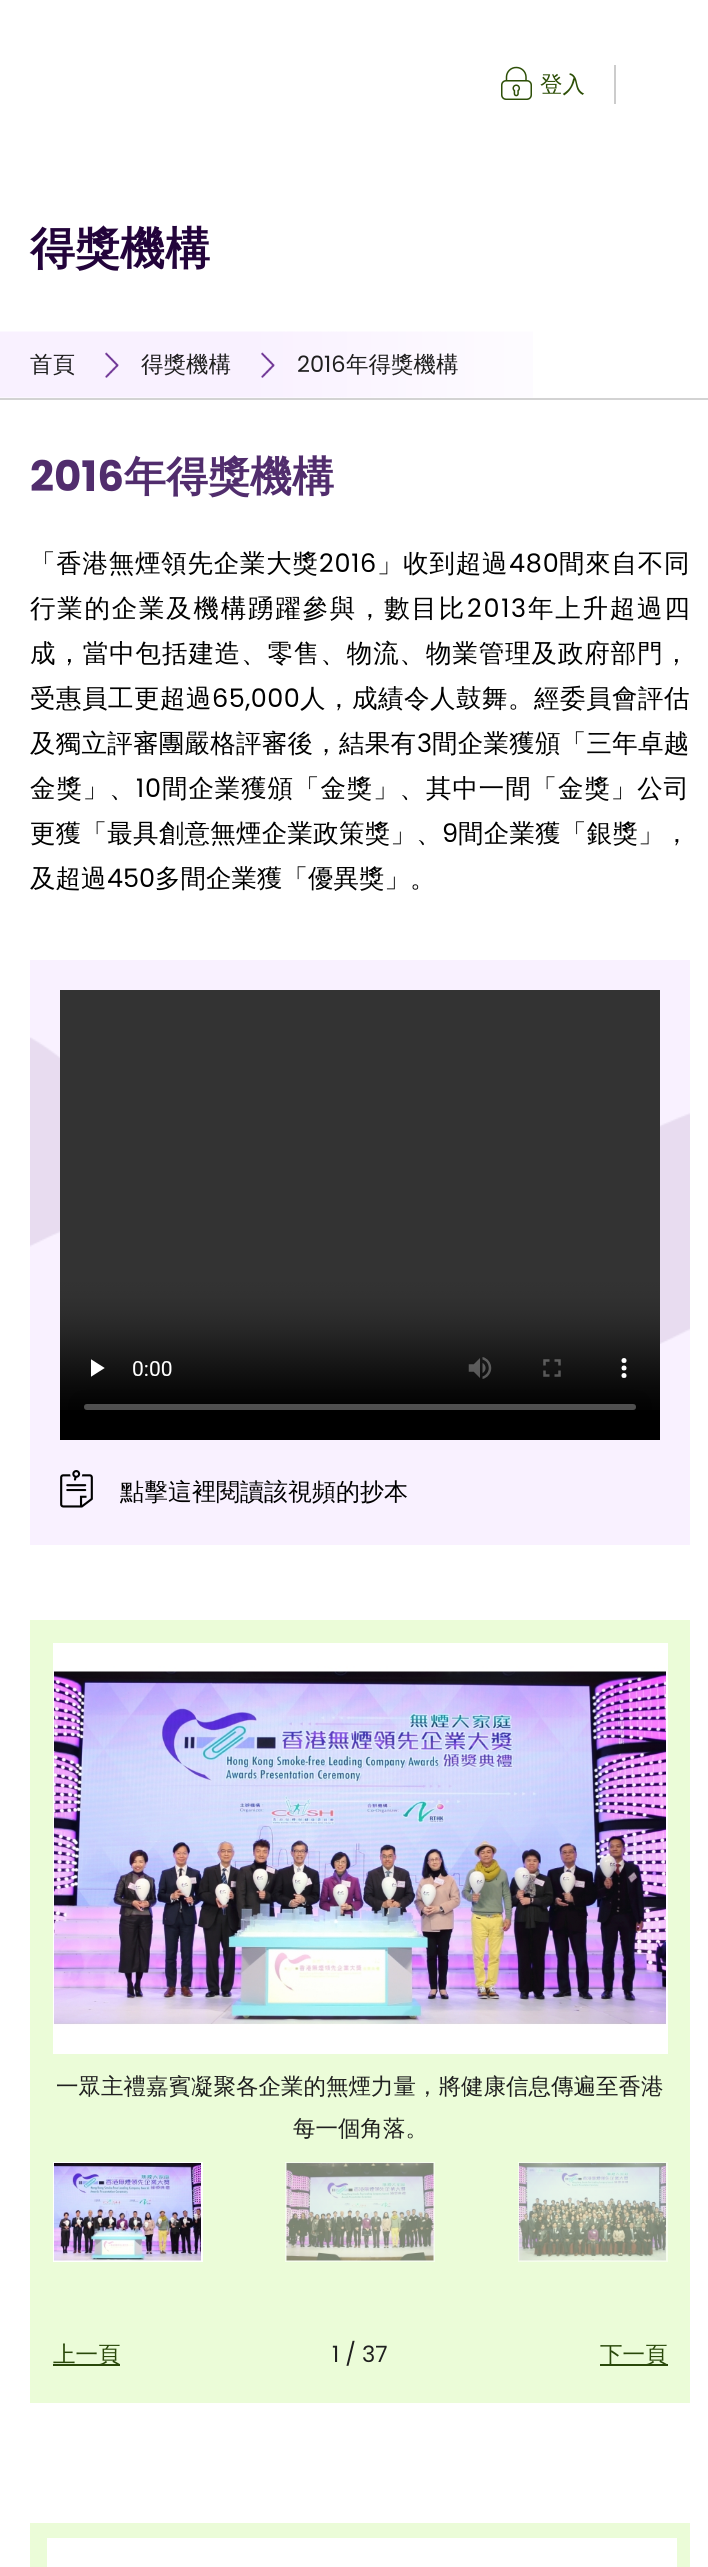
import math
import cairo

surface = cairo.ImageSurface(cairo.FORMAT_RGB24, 708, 2567)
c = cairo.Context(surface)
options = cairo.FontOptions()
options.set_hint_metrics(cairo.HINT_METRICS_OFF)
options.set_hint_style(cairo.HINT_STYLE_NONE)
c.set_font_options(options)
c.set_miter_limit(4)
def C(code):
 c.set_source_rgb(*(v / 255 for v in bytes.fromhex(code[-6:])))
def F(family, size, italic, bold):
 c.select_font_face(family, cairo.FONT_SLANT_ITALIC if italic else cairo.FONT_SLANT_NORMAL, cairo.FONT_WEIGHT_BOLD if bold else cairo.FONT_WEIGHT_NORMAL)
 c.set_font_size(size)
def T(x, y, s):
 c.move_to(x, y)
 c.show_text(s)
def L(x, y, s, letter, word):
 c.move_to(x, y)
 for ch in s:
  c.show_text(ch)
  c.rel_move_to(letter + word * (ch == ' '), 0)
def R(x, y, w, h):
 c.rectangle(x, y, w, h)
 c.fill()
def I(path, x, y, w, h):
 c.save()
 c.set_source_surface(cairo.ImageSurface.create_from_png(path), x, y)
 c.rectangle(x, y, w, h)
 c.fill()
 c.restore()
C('ffffff')
c.paint()
I('1.png',501,66,31,34)
F('WenQuanYi Zen Hei Medium',22.5,0,0)
C('2d4f07')
T(540,92,'登入')
C('cccccc')
R(614,65,2,39)
F('WenQuanYi Zen Hei',45,0,1)
C('23043b')
T(30,264,'得獎機構')
I('2.png',0,331,533,67)
C('d3d3d3')
R(0,398,708,2)
F('WenQuanYi Zen Hei Medium',22.5,0,0)
C('1f1f1f')
T(30,372,'首頁')
I('3.png',105,352,14,26)
T(141,372,'得獎機構')
I('4.png',261,352,14,26)
F('Poppins',22.5,0,0)
T(297,372,'2016')
F('WenQuanYi Zen Hei Medium',22.5,0,0)
T(346,372,'年得獎機構')
F('Poppins',42,0,1)
C('512d6d')
T(30,491,'2016')
F('WenQuanYi Zen Hei',42,0,1)
T(124,491,'年得獎機構')
F('WenQuanYi Zen Hei Medium',25.5,0,0)
C('000000')
L(30,572,'「香港無煙領先企業大獎',.75,0)
F('Poppins',25.5,0,0)
L(319,572,'2016',.75,0)
F('WenQuanYi Zen Hei Medium',25.5,0,0)
L(377,572,'」收到超過',.75,0)
F('Poppins',25.5,0,0)
L(509,572,'480',.75,0)
F('WenQuanYi Zen Hei Medium',25.5,0,0)
L(559,572,'間來自不同',.75,0)
L(30,617,'行業的企業及機構踴躍參與，數目比',1.75,0)
F('Poppins',25.5,0,0)
L(467,617,'2013',1.75,0)
F('WenQuanYi Zen Hei Medium',25.5,0,0)
L(528,617,'年上升超過四',1.75,0)
L(30,662,'成，當中包括建造、零售、物流、物業管理及政府部門，',.9,0)
L(30,707,'受惠員工更超過',.5,0)
F('Poppins',25.5,0,0)
L(212,707,'65,000',.5,0)
F('WenQuanYi Zen Hei Medium',25.5,0,0)
L(300,707,'人，成績令人鼓舞。經委員會評估',.5,0)
L(30,752,'及獨立評審團嚴格評審後，結果有',.25,0)
F('Poppins',25.5,0,0)
L(417,752,'3',.25,0)
F('WenQuanYi Zen Hei Medium',25.5,0,0)
L(432,752,'間企業獲頒「三年卓越',.25,0)
L(30,797,'金獎」、',.9,0)
F('Poppins',25.5,0,0)
L(136,797,'10',.9,0)
F('WenQuanYi Zen Hei Medium',25.5,0,0)
L(162,797,'間企業獲頒「金獎」、其中一間「金獎」公司',.9,0)
L(30,842,'更獲「最具創意無煙企業政策獎」、',.25,0)
F('Poppins',25.5,0,0)
L(442,842,'9',.25,0)
F('WenQuanYi Zen Hei Medium',25.5,0,0)
L(458,842,'間企業獲「銀獎」，',.25,0)
T(30,887,'及超過')
F('Poppins',25.5,0,0)
T(107,887,'450')
F('WenQuanYi Zen Hei Medium',25.5,0,0)
T(155,887,'多間企業獲「優異獎」。')
C('f9f1ff')
R(30,960,660,585)
I('5.png',30,1037,660,307)
C('000000')
R(60,1410,600,30)
I('6.png',60,990,600,420)
I('7.png',60,1470,33,38)
F('WenQuanYi Zen Hei Medium',24,0,0)
T(120,1500,'點擊這裡閱讀該視頻的抄本')
C('ebfcd8')
R(30,1620,660,783)
c.rectangle(54,1644,613,409)
C('ffffff')
c.stroke()
I('8.png',54,1645,612,407)
F('WenQuanYi Zen Hei Medium',22.5,0,0)
C('1f1f1f')
T(56,2094,'一眾主禮嘉賓凝聚各企業的無煙力量，將健康信息傳遍至香港')
T(293,2136,'每一個角落。')
c.rectangle(54,2163,148,98)
C('ffffff')
c.stroke()
I('9.png',54,2163,147,98)
c.rectangle(286,2163,148,98)
C('f5feec')
c.stroke()
I('10.png',286,2163,148,98)
c.rectangle(519,2163,148,98)
c.stroke()
I('11.png',519,2163,147,98)
C('29480a')
R(53,2364,67,2)
T(53,2362,'上一頁')
F('Poppins',22.5,0,0)
C('1f1f1f')
T(332,2362,'1 / 37')
C('29480a')
R(600,2364,68,2)
F('WenQuanYi Zen Hei Medium',22.5,0,0)
T(600,2362,'下一頁')
C('ebfcd8')
R(30,2523,660,44)
C('ffffff')
R(47,2538,630,29)
surface.write_to_png('o.png')
